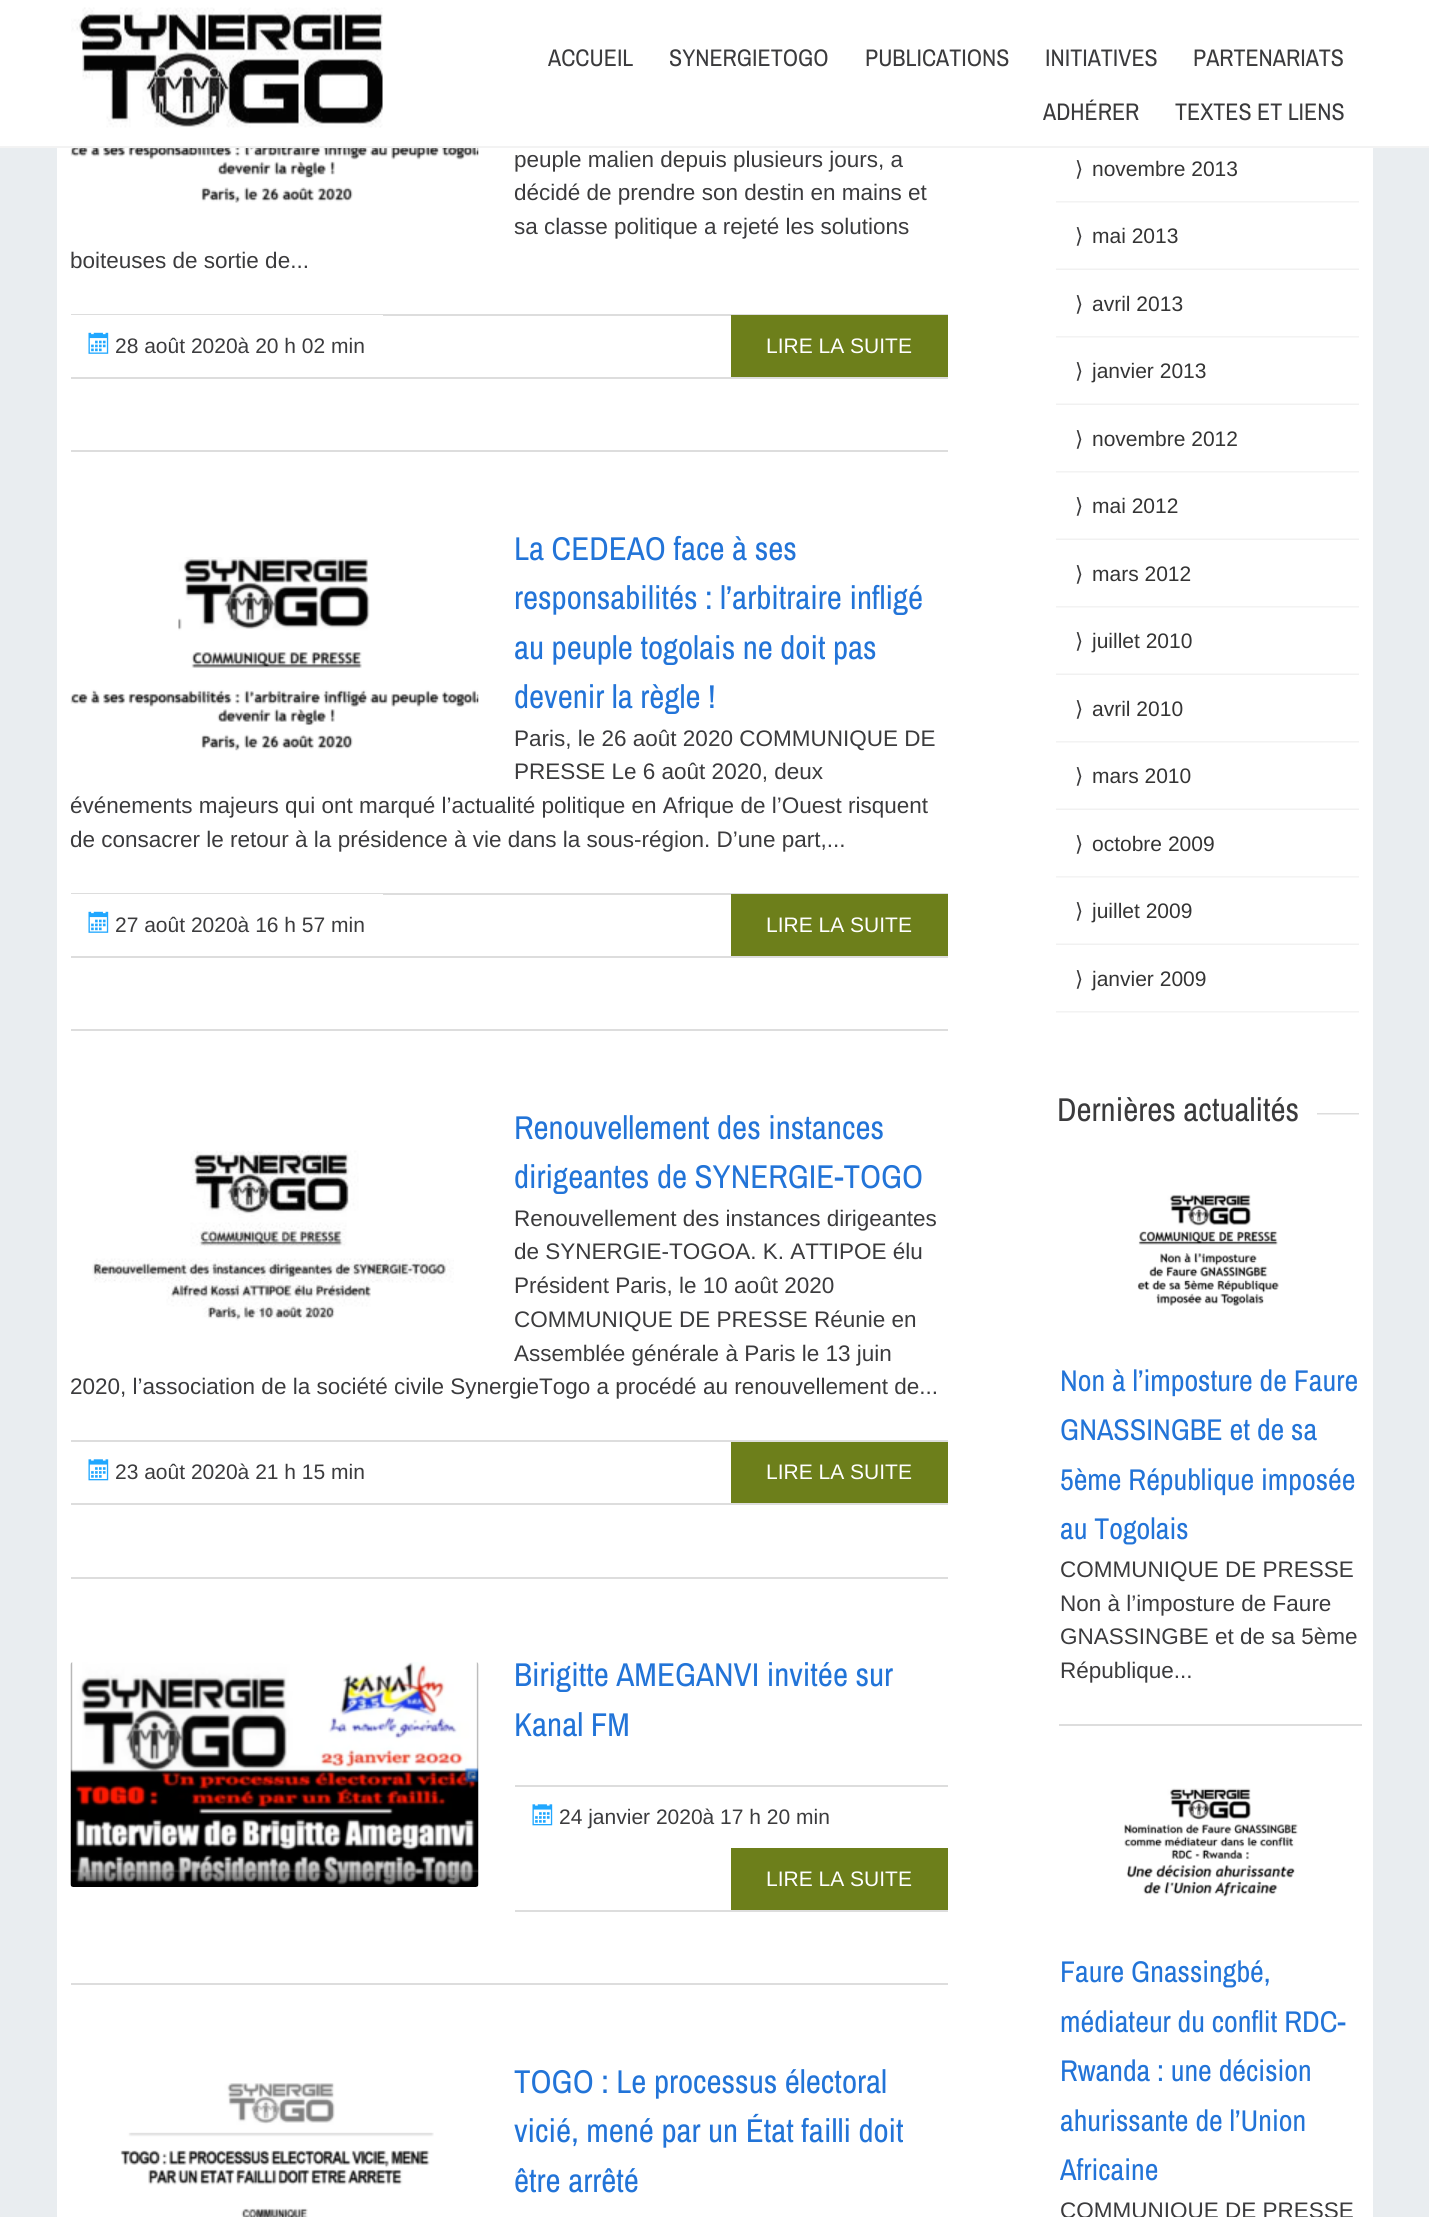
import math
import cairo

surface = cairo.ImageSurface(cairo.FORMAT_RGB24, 1429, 2217)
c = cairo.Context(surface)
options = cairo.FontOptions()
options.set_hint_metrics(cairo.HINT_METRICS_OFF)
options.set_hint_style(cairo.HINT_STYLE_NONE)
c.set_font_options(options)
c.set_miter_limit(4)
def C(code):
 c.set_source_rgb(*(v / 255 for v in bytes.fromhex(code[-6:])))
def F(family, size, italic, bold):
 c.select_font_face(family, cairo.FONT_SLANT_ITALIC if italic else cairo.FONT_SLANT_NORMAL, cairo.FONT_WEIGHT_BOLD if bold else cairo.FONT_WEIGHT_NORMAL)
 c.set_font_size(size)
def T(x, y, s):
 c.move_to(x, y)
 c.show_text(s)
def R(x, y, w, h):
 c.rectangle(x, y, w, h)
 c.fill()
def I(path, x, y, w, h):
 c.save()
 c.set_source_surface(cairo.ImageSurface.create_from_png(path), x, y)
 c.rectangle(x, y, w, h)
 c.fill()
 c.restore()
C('e9edf0')
c.paint()
C('ffffff')
R(57,0,1316,2217)
I('2.png',70,9,409,194)
I('9.png',1056,66,303,2)
I('10.png',1056,133,303,2)
c.set_source_rgba(1,1,1,0.99)
R(0,0,1429,147)
c.set_source_rgba(0.953,0.953,0.953,0.99)
R(0,146,1429,2)
I('1.png',71,7,312,121)
F('Archivo Narrow',24,0,0)
C('3b3b3d')
T(548,66,'ACCUEIL')
T(669,66,'SYNERGIETOGO')
T(865,66,'PUBLICATIONS')
T(1045,66,'INITIATIVES')
T(1193,66,'PARTENARIATS')
T(1043,120,'ADHÉRER')
T(1175,120,'TEXTES ET LIENS')
C('dddddd')
R(71,450,877,2)
F('Liberation Sans',22.5,0,0)
C('3b3b3d')
T(514,167,'peuple malien depuis plusieurs jours, a')
T(514,200,'décidé de prendre son destin en mains et')
T(514,234,'sa classe politique a rejeté les solutions')
T(70,268,'boiteuses de sortie de...')
C('dddddd')
R(71,314,877,2)
R(71,377,877,2)
C('ffffff')
R(71,315,312,1)
I('3.png',88,332,21,22)
F('Liberation Sans',21,0,0)
C('3b3b3d')
T(115,353,'28 août 2020à 20 h 02 min')
C('6d7f1b')
R(731,315,217,62)
C('ffffff')
T(766,353,'LIRE LA SUITE')
C('dddddd')
R(71,1029,877,2)
F('Archivo Narrow',33,0,0)
C('2274d8')
T(514,560,'La CEDEAO face à ses')
I('4.png',70,557,409,194)
T(514,609,'responsabilités : l’arbitraire infligé')
T(514,659,'au peuple togolais ne doit pas')
T(514,708,'devenir la règle !')
F('Liberation Sans',22.5,0,0)
C('3b3b3d')
T(514,746,'Paris, le 26 août 2020 COMMUNIQUE DE')
T(514,779,'PRESSE Le 6 août 2020, deux')
T(70,813,'événements majeurs qui ont marqué l’actualité politique en Afrique de l’Ouest risquent')
T(70,847,'de consacrer le retour à la présidence à vie dans la sous-région. D’une part,...')
C('dddddd')
R(71,893,877,2)
R(71,956,877,2)
C('ffffff')
R(71,894,312,1)
I('3.png',88,911,21,22)
F('Liberation Sans',21,0,0)
C('3b3b3d')
T(115,932,'27 août 2020à 16 h 57 min')
C('6d7f1b')
R(731,894,217,62)
C('ffffff')
T(766,932,'LIRE LA SUITE')
C('dddddd')
R(71,1577,877,2)
F('Archivo Narrow',33,0,0)
C('2274d8')
T(514,1139,'Renouvellement des instances')
I('5.png',92,1150,362,171)
T(514,1188,'dirigeantes de SYNERGIE-TOGO')
F('Liberation Sans',22.5,0,0)
C('3b3b3d')
T(514,1226,'Renouvellement des instances dirigeantes')
T(514,1259,'de SYNERGIE-TOGOA. K. ATTIPOE élu')
T(514,1293,'Président Paris, le 10 août 2020')
T(514,1327,'COMMUNIQUE DE PRESSE Réunie en')
T(514,1361,'Assemblée générale à Paris le 13 juin')
T(70,1394,'2020, l’association de la société civile SynergieTogo a procédé au renouvellement de...')
C('dddddd')
R(71,1440,877,2)
R(71,1503,877,2)
I('6.png',88,1459,21,22)
F('Liberation Sans',21,0,0)
C('3b3b3d')
T(115,1479,'23 août 2020à 21 h 15 min')
C('6d7f1b')
R(731,1442,217,61)
C('ffffff')
T(766,1479,'LIRE LA SUITE')
C('dddddd')
R(71,1983,877,2)
I('7.png',70,1662,409,225)
F('Archivo Narrow',33,0,0)
C('2274d8')
T(514,1686,'Birigitte AMEGANVI invitée sur')
T(514,1736,'Kanal FM')
C('dddddd')
R(515,1785,433,2)
R(515,1910,433,2)
I('6.png',532,1804,21,22)
F('Liberation Sans',21,0,0)
C('3b3b3d')
T(559,1824,'24 janvier 2020à 17 h 20 min')
C('6d7f1b')
R(731,1848,217,62)
C('ffffff')
T(766,1886,'LIRE LA SUITE')
I('8.png',120,2083,314,134)
F('Archivo Narrow',33,0,0)
C('2274d8')
T(514,2093,'TOGO : Le processus électoral')
T(514,2142,'vicié, mené par un État failli doit')
T(514,2192,'être arrêté')
I('9.png',1056,201,303,2)
F('DejaVu Sans',21,0,0)
C('3b3b3d')
T(1075,176,'⟩')
F('Liberation Sans',21,0,0)
C('343434')
T(1092,176,'novembre 2013')
I('10.png',1056,268,303,2)
F('DejaVu Sans',21,0,0)
C('3b3b3d')
T(1075,243,'⟩')
F('Liberation Sans',21,0,0)
C('343434')
T(1092,243,'mai 2013')
I('9.png',1056,336,303,2)
F('DejaVu Sans',21,0,0)
C('3b3b3d')
T(1075,311,'⟩')
F('Liberation Sans',21,0,0)
C('343434')
T(1092,311,'avril 2013')
I('10.png',1056,403,303,2)
F('DejaVu Sans',21,0,0)
C('3b3b3d')
T(1075,378,'⟩')
F('Liberation Sans',21,0,0)
C('343434')
T(1092,378,'janvier 2013')
I('9.png',1056,471,303,2)
F('DejaVu Sans',21,0,0)
C('3b3b3d')
T(1075,446,'⟩')
F('Liberation Sans',21,0,0)
C('343434')
T(1092,446,'novembre 2012')
I('10.png',1056,538,303,2)
F('DejaVu Sans',21,0,0)
C('3b3b3d')
T(1075,513,'⟩')
F('Liberation Sans',21,0,0)
C('343434')
T(1092,513,'mai 2012')
I('9.png',1056,606,303,2)
F('DejaVu Sans',21,0,0)
C('3b3b3d')
T(1075,581,'⟩')
F('Liberation Sans',21,0,0)
C('343434')
T(1092,581,'mars 2012')
I('10.png',1056,673,303,2)
F('DejaVu Sans',21,0,0)
C('3b3b3d')
T(1075,648,'⟩')
F('Liberation Sans',21,0,0)
C('343434')
T(1092,648,'juillet 2010')
I('9.png',1056,741,303,2)
F('DejaVu Sans',21,0,0)
C('3b3b3d')
T(1075,716,'⟩')
F('Liberation Sans',21,0,0)
C('343434')
T(1092,716,'avril 2010')
I('10.png',1056,808,303,2)
F('DejaVu Sans',21,0,0)
C('3b3b3d')
T(1075,783,'⟩')
F('Liberation Sans',21,0,0)
C('343434')
T(1092,783,'mars 2010')
I('11.png',1056,876,303,2)
F('DejaVu Sans',21,0,0)
C('3b3b3d')
T(1075,851,'⟩')
F('Liberation Sans',21,0,0)
C('343434')
T(1092,851,'octobre 2009')
I('10.png',1056,943,303,2)
F('DejaVu Sans',21,0,0)
C('3b3b3d')
T(1075,918,'⟩')
F('Liberation Sans',21,0,0)
C('343434')
T(1092,918,'juillet 2009')
I('9.png',1056,1011,303,2)
F('DejaVu Sans',21,0,0)
C('3b3b3d')
T(1075,986,'⟩')
F('Liberation Sans',21,0,0)
C('343434')
T(1092,986,'janvier 2009')
I('12.png',1317,1113,42,2)
F('Archivo Narrow',33,0,0)
C('3b3b3d')
T(1057,1121,'Dernières actualités')
C('dddddd')
R(1059,1724,303,2)
I('13.png',1137,1194,142,112)
F('Archivo Narrow',30,0,0)
C('2274d8')
T(1060,1391,'Non à l’imposture de Faure')
T(1060,1440,'GNASSINGBE et de sa')
T(1060,1490,'5ème République imposée')
T(1060,1539,'au Togolais')
F('Liberation Sans',22.5,0,0)
C('3b3b3d')
T(1060,1577,'COMMUNIQUE DE PRESSE')
T(1060,1611,'Non à l’imposture de Faure')
T(1060,1644,'GNASSINGBE et de sa 5ème')
T(1060,1678,'République...')
I('14.png',1124,1788,174,109)
F('Archivo Narrow',30,0,0)
C('2274d8')
T(1060,1982,'Faure Gnassingbé,')
T(1060,2032,'médiateur du conflit RDC-')
T(1060,2081,'Rwanda : une décision')
T(1060,2131,'ahurissante de l’Union')
T(1060,2180,'Africaine')
F('Liberation Sans',22.5,0,0)
C('3b3b3d')
T(1060,2218,'COMMUNIQUE DE PRESSE')
surface.write_to_png('o.png')
